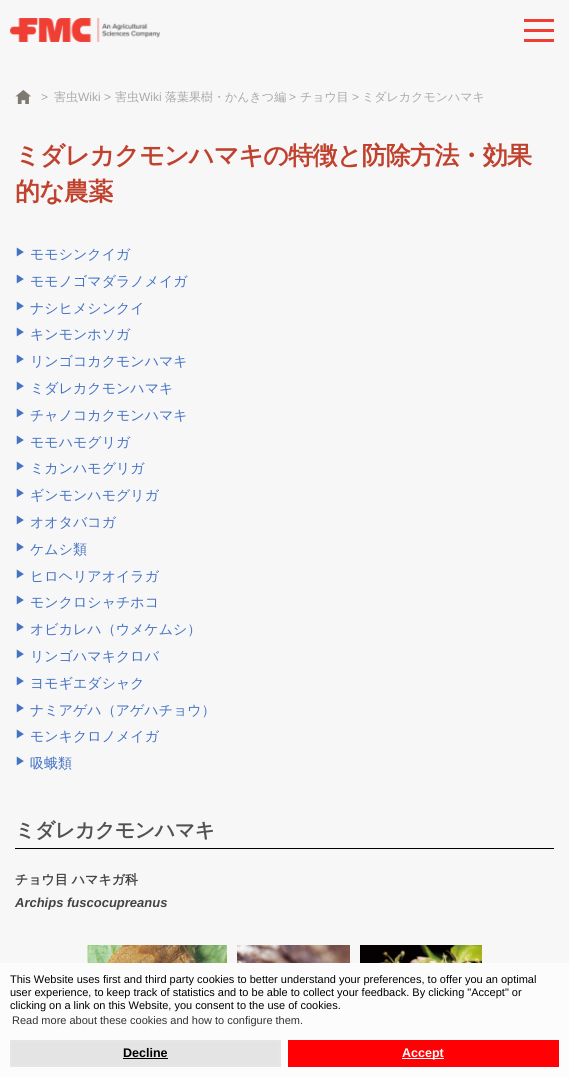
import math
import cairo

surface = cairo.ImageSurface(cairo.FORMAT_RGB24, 569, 1077)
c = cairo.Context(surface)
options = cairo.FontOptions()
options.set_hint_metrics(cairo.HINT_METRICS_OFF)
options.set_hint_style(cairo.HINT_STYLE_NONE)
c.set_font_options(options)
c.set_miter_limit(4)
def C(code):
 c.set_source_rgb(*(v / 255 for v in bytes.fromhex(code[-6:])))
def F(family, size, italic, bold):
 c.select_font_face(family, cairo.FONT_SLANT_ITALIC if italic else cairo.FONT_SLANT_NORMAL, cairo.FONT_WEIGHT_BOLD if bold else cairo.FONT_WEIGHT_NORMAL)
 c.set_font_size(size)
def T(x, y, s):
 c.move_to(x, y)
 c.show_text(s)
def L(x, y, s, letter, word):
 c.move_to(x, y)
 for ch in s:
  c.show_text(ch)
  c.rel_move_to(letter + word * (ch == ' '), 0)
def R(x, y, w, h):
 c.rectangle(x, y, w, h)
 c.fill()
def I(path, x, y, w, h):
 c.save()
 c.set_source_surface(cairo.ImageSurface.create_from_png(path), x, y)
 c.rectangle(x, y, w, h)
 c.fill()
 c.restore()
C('f7f7f7')
c.paint()
I('1.png',10,18,150,24)
C('ef3e33')
R(524,19,30,3)
R(524,29,30,3)
R(524,39,30,3)
I('2.png',15,90,16,14)
F('Liberation Sans',12,0,0)
C('aaa9a9')
T(41,101,'>')
F('WenQuanYi Zen Hei Medium',12,0,0)
T(54,101,'害虫')
F('Liberation Sans',12,0,0)
T(78,101,'Wiki >')
F('WenQuanYi Zen Hei Medium',12,0,0)
T(115,101,'害虫')
F('Liberation Sans',12,0,0)
T(139,101,'Wiki')
F('WenQuanYi Zen Hei Medium',12,0,0)
T(165,101,'落葉果樹・かんきつ編')
F('Liberation Sans',12,0,0)
T(289,101,'>')
F('WenQuanYi Zen Hei Medium',12,0,0)
T(300,101,'チョウ目')
F('Liberation Sans',12,0,0)
T(352,101,'>')
F('WenQuanYi Zen Hei Medium',12,0,0)
T(362,101,'ミダレカクモンハマキ')
F('WenQuanYi Zen Hei',25,0,1)
C('c0412e')
L(15,164,'ミダレカクモンハマキの特徴と防除方法・効果',-.75,0)
L(15,200,'的な農薬',-.75,0)
F('WenQuanYi Zen Hei Medium',11,0,0)
C('4472c4')
T(15,256,'▶')
F('WenQuanYi Zen Hei Medium',14,0,0)
T(30,259,'モモシンクイガ')
F('WenQuanYi Zen Hei Medium',11,0,0)
T(15,283,'▶')
F('WenQuanYi Zen Hei Medium',14,0,0)
T(30,286,'モモノゴマダラノメイガ')
F('WenQuanYi Zen Hei Medium',11,0,0)
T(15,310,'▶')
F('WenQuanYi Zen Hei Medium',14,0,0)
T(30,313,'ナシヒメシンクイ')
F('WenQuanYi Zen Hei Medium',11,0,0)
T(15,336,'▶')
F('WenQuanYi Zen Hei Medium',14,0,0)
T(30,339,'キンモンホソガ')
F('WenQuanYi Zen Hei Medium',11,0,0)
T(15,363,'▶')
F('WenQuanYi Zen Hei Medium',14,0,0)
T(30,366,'リンゴコカクモンハマキ')
F('WenQuanYi Zen Hei Medium',11,0,0)
T(15,390,'▶')
F('WenQuanYi Zen Hei Medium',14,0,0)
T(30,393,'ミダレカクモンハマキ')
F('WenQuanYi Zen Hei Medium',11,0,0)
T(15,417,'▶')
F('WenQuanYi Zen Hei Medium',14,0,0)
T(30,420,'チャノコカクモンハマキ')
F('WenQuanYi Zen Hei Medium',11,0,0)
T(15,444,'▶')
F('WenQuanYi Zen Hei Medium',14,0,0)
T(30,447,'モモハモグリガ')
F('WenQuanYi Zen Hei Medium',11,0,0)
T(15,470,'▶')
F('WenQuanYi Zen Hei Medium',14,0,0)
T(30,473,'ミカンハモグリガ')
F('WenQuanYi Zen Hei Medium',11,0,0)
T(15,497,'▶')
F('WenQuanYi Zen Hei Medium',14,0,0)
T(30,500,'ギンモンハモグリガ')
F('WenQuanYi Zen Hei Medium',11,0,0)
T(15,524,'▶')
F('WenQuanYi Zen Hei Medium',14,0,0)
T(30,527,'オオタバコガ')
F('WenQuanYi Zen Hei Medium',11,0,0)
T(15,551,'▶')
F('WenQuanYi Zen Hei Medium',14,0,0)
T(30,554,'ケムシ類')
F('WenQuanYi Zen Hei Medium',11,0,0)
T(15,578,'▶')
F('WenQuanYi Zen Hei Medium',14,0,0)
T(30,581,'ヒロヘリアオイラガ')
F('WenQuanYi Zen Hei Medium',11,0,0)
T(15,604,'▶')
F('WenQuanYi Zen Hei Medium',14,0,0)
T(30,607,'モンクロシャチホコ')
F('WenQuanYi Zen Hei Medium',11,0,0)
T(15,631,'▶')
F('WenQuanYi Zen Hei Medium',14,0,0)
T(30,634,'オビカレハ（ウメケムシ）')
F('WenQuanYi Zen Hei Medium',11,0,0)
T(15,658,'▶')
F('WenQuanYi Zen Hei Medium',14,0,0)
T(30,661,'リンゴハマキクロバ')
F('WenQuanYi Zen Hei Medium',11,0,0)
T(15,685,'▶')
F('WenQuanYi Zen Hei Medium',14,0,0)
T(30,688,'ヨモギエダシャク')
F('WenQuanYi Zen Hei Medium',11,0,0)
T(15,712,'▶')
F('WenQuanYi Zen Hei Medium',14,0,0)
T(30,715,'ナミアゲハ（アゲハチョウ）')
F('WenQuanYi Zen Hei Medium',11,0,0)
T(15,738,'▶')
F('WenQuanYi Zen Hei Medium',14,0,0)
T(30,741,'モンキクロノメイガ')
F('WenQuanYi Zen Hei Medium',11,0,0)
T(15,765,'▶')
F('WenQuanYi Zen Hei Medium',14,0,0)
T(30,768,'吸蛾類')
C('000000')
R(15,848,539,1)
F('WenQuanYi Zen Hei',20,0,1)
C('525252')
L(15,837,'ミダレカクモンハマキ',-.5,0)
F('WenQuanYi Zen Hei',13,0,1)
C('444444')
T(15,884,'チョウ目 ハマキガ科')
F('Liberation Sans',13,1,1)
T(15,907,'Archips fuscocupreanus')
I('3.png',87,945,140,18)
I('4.png',237,945,113,18)
I('5.png',360,945,122,18)
C('fdfcfc')
R(0,963,569,114)
F('Liberation Sans',11,0,0)
C('000000')
T(10,983,'This Website uses first and third party cookies to better understand your preferences, to offer you an optimal')
T(10,996,'user experience, to keep track of statistics and to be able to collect your feedback. By clicking "Accept" or')
T(10,1009,'clicking on a link on this Website, you consent to the use of cookies.')
C('333232')
T(12,1024,'Read more about these cookies and how to configure them.')
C('e4e4e4')
c.rectangle(11,1041,269,25)
c.fill_preserve()
C('e6e6e6')
c.stroke()
F('Liberation Sans',12.5,0,1)
C('000000')
T(123,1057,'Decline')
R(123,1058,45,1)
C('ff0004')
R(288,1040,271,27)
C('ffffff')
R(402,1058,42,1)
T(402,1057,'Accept')
surface.write_to_png('o.png')
